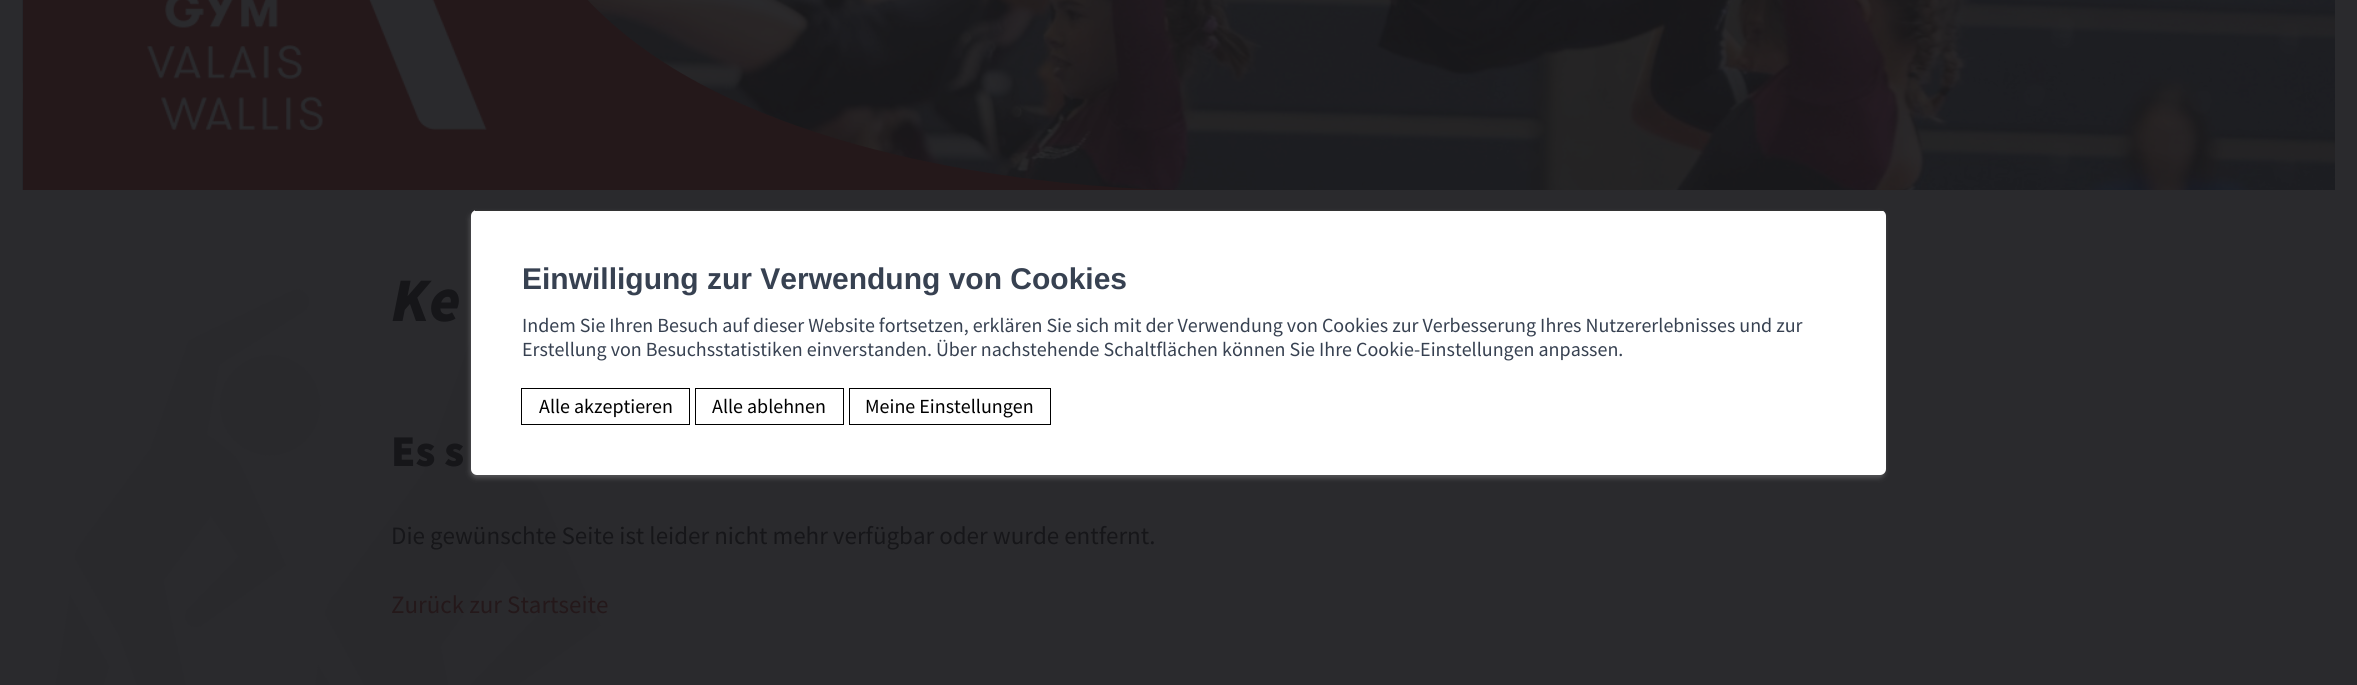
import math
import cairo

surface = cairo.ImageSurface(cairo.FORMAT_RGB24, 2357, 685)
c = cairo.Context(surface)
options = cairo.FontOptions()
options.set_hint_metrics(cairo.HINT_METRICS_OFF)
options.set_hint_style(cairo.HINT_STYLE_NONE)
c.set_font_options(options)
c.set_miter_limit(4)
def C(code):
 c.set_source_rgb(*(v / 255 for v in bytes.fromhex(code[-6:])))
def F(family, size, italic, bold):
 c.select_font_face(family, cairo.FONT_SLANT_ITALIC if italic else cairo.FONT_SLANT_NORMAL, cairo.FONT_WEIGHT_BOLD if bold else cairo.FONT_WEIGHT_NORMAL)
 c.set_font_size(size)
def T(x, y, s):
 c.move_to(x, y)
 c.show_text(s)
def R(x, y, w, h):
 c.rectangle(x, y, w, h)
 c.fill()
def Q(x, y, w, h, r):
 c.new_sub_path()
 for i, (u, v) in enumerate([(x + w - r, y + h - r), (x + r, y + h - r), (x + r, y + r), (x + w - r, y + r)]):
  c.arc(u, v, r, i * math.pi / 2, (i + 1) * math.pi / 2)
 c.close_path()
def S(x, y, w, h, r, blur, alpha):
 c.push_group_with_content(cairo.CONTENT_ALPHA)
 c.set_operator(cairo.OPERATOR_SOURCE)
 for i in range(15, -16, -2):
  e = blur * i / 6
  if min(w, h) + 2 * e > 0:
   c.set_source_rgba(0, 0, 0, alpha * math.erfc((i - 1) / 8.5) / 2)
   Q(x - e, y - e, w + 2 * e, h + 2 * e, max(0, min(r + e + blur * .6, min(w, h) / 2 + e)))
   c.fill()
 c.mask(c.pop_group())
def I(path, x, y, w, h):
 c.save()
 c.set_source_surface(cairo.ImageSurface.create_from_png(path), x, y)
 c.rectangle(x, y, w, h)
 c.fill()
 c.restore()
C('2a2a2d')
c.paint()
I('3.png',55,289,546,396)
C('ffffff')
S(470,213,1415,265,6,2.5,.2)
C('ffffff')
Q(471,210,1415,265,6)
c.fill()
C('333333')
R(475,210,1409,1)
F('Liberation Sans',30,0,1)
C('374151')
T(522,289,'Einwilligung zur Verwendung von Cookies')
F('Source Sans Pro',20,0,0)
T(522,332,'Indem Sie Ihren Besuch auf dieser Website fortsetzen, erklären Sie sich mit der Verwendung von Cookies zur Verbesserung Ihres Nutzererlebnisses und zur')
T(522,356,'Erstellung von Besuchsstatistiken einverstanden. Über nachstehende Schaltflächen können Sie Ihre Cookie-Einstellungen anpassen.')
c.rectangle(521.5,388.5,168,36)
C('000000')
c.set_line_width(1)
c.stroke()
T(539,413,'Alle akzeptieren')
c.rectangle(695.5,388.5,148,36)
c.stroke()
T(712,413,'Alle ablehnen')
c.rectangle(849.5,388.5,201,36)
c.stroke()
T(865,413,'Meine Einstellungen')
I('1.png',22,0,2313,190)
c.save()
c.rectangle(23,0,1156,190)
c.clip()
C('24181a')
c.new_path()
c.move_to(1179,190)
c.curve_to(1179,190,208,190,601,-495)
c.line_to(22,-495)
c.line_to(22,190)
c.close_path()
c.fill()
c.restore()
I('2.png',147,0,340,130)
F('Source Sans Pro Black',62,1,0)
C('161619')
T(391,321,'Ke')
F('Source Sans Pro Black',44,0,0)
T(391,466,'Es s')
F('Source Sans Pro',25,0,0)
T(391,544,'Die gewünschte Seite ist leider nicht mehr verfügbar oder wurde entfernt.')
C('24181a')
T(391,613,'Zurück zur Startseite')
surface.write_to_png('o.png')
